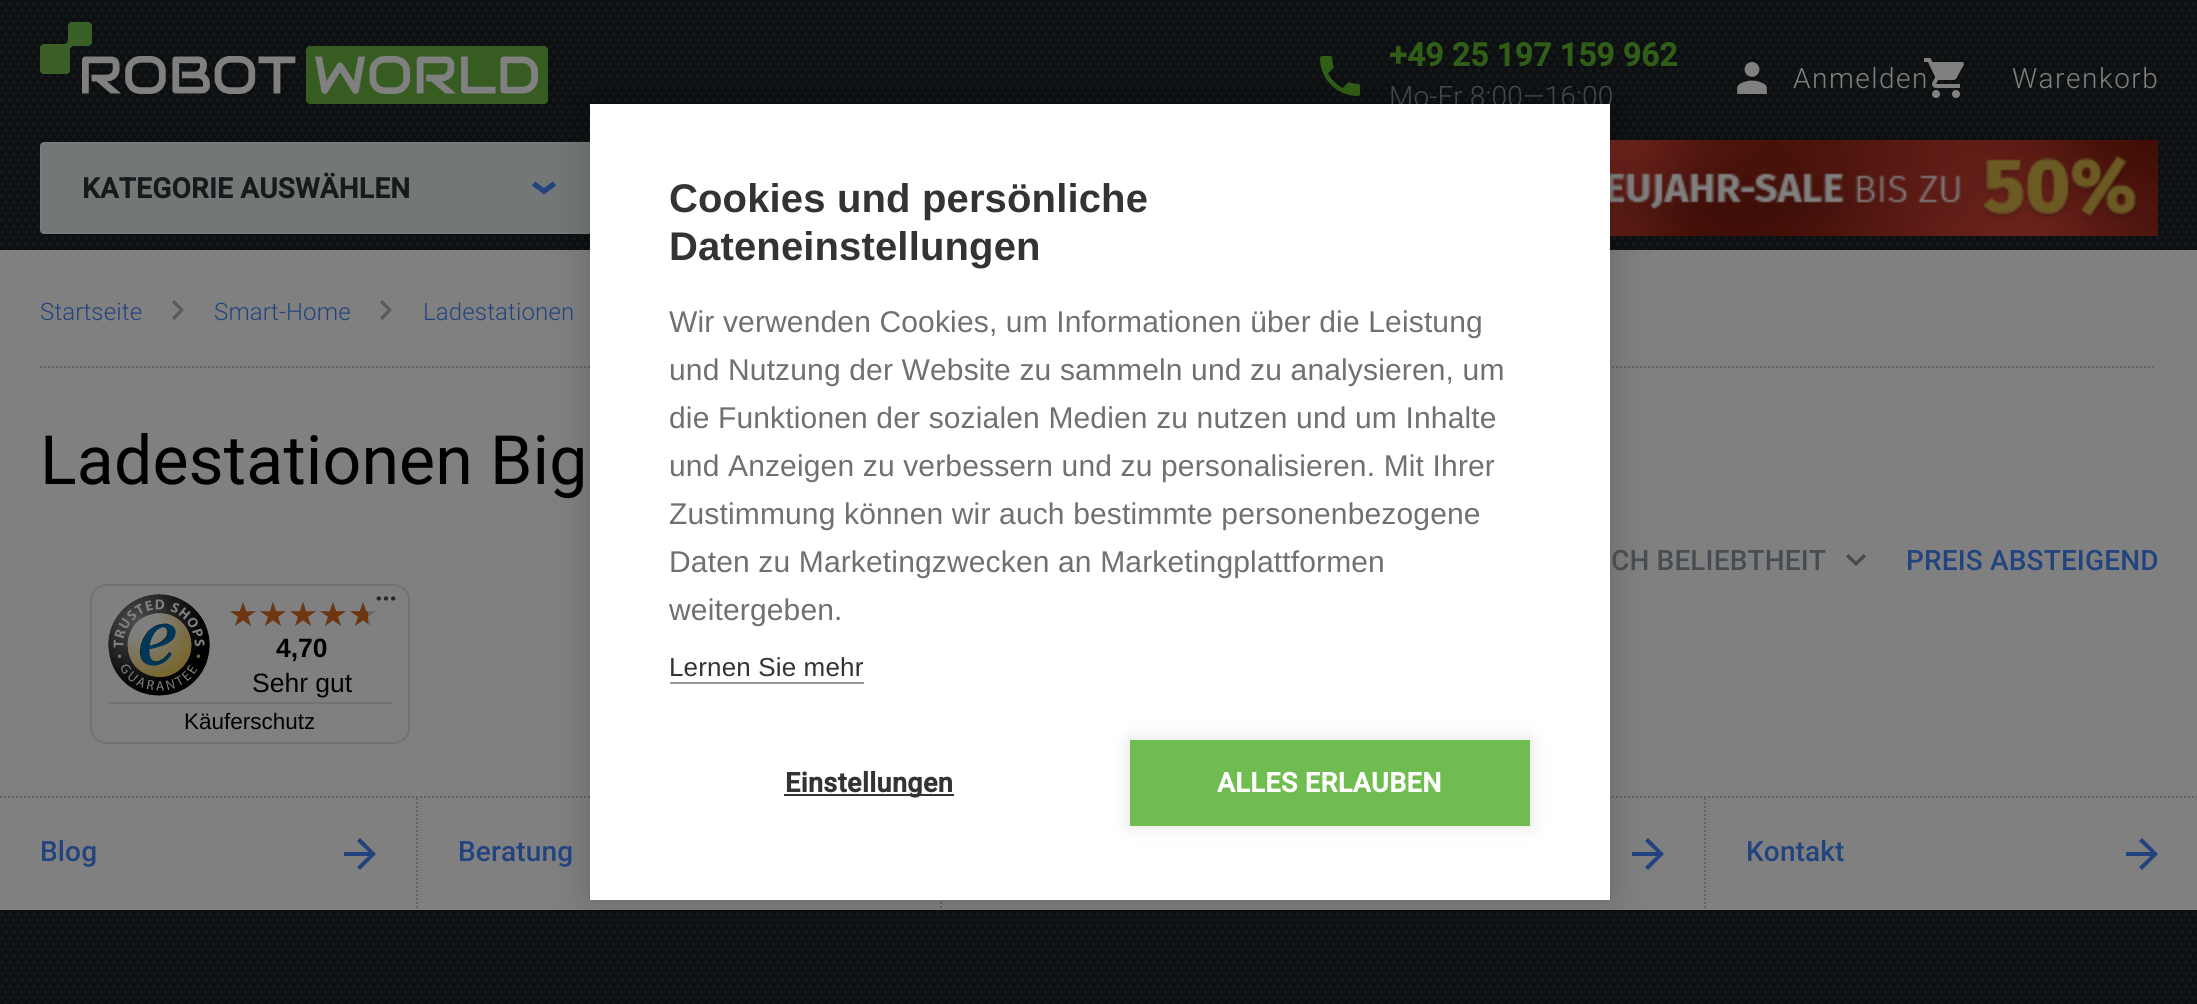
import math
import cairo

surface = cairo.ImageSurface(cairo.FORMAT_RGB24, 2197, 1004)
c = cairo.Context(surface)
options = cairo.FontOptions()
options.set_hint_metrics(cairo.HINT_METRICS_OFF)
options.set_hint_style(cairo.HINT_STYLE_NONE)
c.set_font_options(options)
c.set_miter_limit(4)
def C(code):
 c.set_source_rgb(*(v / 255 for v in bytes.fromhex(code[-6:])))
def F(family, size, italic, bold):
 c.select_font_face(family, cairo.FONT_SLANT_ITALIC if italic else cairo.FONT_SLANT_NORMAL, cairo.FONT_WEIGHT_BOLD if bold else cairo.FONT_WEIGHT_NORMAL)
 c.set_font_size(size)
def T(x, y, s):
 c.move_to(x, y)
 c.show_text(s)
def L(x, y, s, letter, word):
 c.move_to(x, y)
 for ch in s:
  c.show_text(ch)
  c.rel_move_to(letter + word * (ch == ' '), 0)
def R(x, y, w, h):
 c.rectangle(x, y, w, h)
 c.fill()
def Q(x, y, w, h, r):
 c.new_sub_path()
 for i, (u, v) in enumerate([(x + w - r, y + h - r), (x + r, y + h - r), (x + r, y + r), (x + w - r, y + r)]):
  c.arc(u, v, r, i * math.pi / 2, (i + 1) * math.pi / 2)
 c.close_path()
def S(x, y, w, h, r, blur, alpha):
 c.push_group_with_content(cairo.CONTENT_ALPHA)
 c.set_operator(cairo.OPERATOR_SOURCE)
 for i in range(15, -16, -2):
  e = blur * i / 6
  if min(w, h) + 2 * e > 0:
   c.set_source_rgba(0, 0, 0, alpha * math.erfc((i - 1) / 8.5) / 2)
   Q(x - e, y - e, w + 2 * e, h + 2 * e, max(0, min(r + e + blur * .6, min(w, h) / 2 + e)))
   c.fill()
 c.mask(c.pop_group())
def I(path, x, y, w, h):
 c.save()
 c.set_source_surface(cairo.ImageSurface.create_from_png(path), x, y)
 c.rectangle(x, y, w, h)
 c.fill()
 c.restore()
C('808080')
c.paint()
I('1.png',0,0,2197,250)
I('2.png',40,22,508,82)
I('3.png',1320,56,40,40)
F('Roboto',32,0,1)
C('305e17')
L(1389,66,'+49 25 197 159 962',.15,0)
F('Roboto Light',28,0,0)
C('464d52')
L(1389,106,'Mo-Fr 8:00—16:00',.15,0)
I('4.png',1737,62,30,32)
C('808080')
L(1793,88,'Anmelden',1.5,0)
I('5.png',1924,58,40,40)
L(2012,88,'Warenkorb',1.5,0)
C('747778')
Q(41,143,558,90,3)
c.fill_preserve()
C('77797a')
c.stroke()
F('Roboto',28,0,1)
C('151a1b')
L(82,198,'KATEGORIE AUSWÄHLEN',.25,0)
C('22437e')
c.new_path()
c.move_to(553,181.5)
c.line_to(544,188)
c.line_to(535,181.5)
c.line_to(532,185.5)
c.line_to(544,194.5)
c.line_to(556,185.5)
c.close_path()
c.fill()
I('6.png',1610,140,548,96)
c.new_path()
c.move_to(40,367)
c.line_to(2154,367)
C('646464')
c.set_dash([2,2])
c.stroke()
I('7.png',0,910,2197,94)
c.new_path()
c.move_to(0,797)
c.line_to(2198,797)
c.stroke()
c.new_path()
c.move_to(941,798)
c.line_to(941,910)
c.stroke()
C('22437e')
c.new_path()
c.move_to(1648,838)
c.line_to(1645,841)
c.line_to(1656.5,852)
c.line_to(1632,852)
c.line_to(1632,856)
c.line_to(1656.5,856)
c.line_to(1645,867)
c.line_to(1648,870)
c.line_to(1664,854)
c.close_path()
c.fill()
C('000000')
S(590,104,1020,796,0,20,.2)
C('ffffff')
R(590,104,1020,796)
F('Liberation Sans',40,0,1)
C('333333')
L(669,212,'Cookies und persönliche',.15,0)
L(669,260,'Dateneinstellungen',.15,0)
F('Liberation Sans',30,0,0)
C('707070')
L(669,332,'Wir verwenden Cookies, um Informationen über die Leistung',.15,0)
L(669,380,'und Nutzung der Website zu sammeln und zu analysieren, um',.15,0)
L(669,428,'die Funktionen der sozialen Medien zu nutzen und um Inhalte',.15,0)
L(669,476,'und Anzeigen zu verbessern und zu personalisieren. Mit Ihrer',.15,0)
L(669,524,'Zustimmung können wir auch bestimmte personenbezogene',.15,0)
L(669,572,'Daten zu Marketingzwecken an Marketingplattformen',.15,0)
L(669,620,'weitergeben.',.15,0)
F('Liberation Sans',26,0,0)
C('333333')
L(669,676,'Lernen Sie mehr',.15,0)
C('999999')
R(670,682,194,2)
C('333333')
R(784,794,170,2)
F('Roboto',27,0,1)
L(785,792,'Einstellungen',.4,0)
C('000000')
S(1130,740,400,86,0,10,.12)
C('6fbc50')
R(1130,740,400,86)
C('ffffff')
L(1217,792,'ALLES ERLAUBEN',.4,0)
F('Roboto Light',24,0,0)
C('22437e')
L(40,320,'Startseite',.15,0)
C('585b5e')
c.new_path()
c.move_to(172,302.5)
c.line_to(174.5,300)
c.line_to(184,310)
c.line_to(174.5,320)
c.line_to(172,317.5)
c.line_to(179.5,310)
c.close_path()
c.fill()
C('22437e')
L(214,320,'Smart-Home',.15,0)
C('585b5e')
c.new_path()
c.move_to(380,302.5)
c.line_to(382.5,300)
c.line_to(392,310)
c.line_to(382.5,320)
c.line_to(380,317.5)
c.line_to(387.5,310)
c.close_path()
c.fill()
C('22437e')
L(423,320,'Ladestationen',.15,0)
F('Roboto',68,0,0)
C('000000')
L(40,484,'Ladestationen Big',.15,0)
F('Roboto Medium',28,0,0)
C('464d52')
L(1611,570,'CH BELIEBTHEIT',.15,0)
c.new_path()
c.move_to(1863.5,554)
c.line_to(1866,556.5)
c.line_to(1856,566)
c.line_to(1846,556.5)
c.line_to(1848.5,554)
c.line_to(1856,561.5)
c.close_path()
c.fill()
C('22437e')
L(1906,570,'PREIS ABSTEIGEND',.15,0)
Q(91,585,318,158,15)
C('737373')
c.set_dash([])
c.stroke()
I('8.png',376,596,20,5)
I('9.png',108,594,102,102)
I('10.png',230,602,26,24)
I('10.png',260,602,26,24)
I('10.png',290,602,26,24)
I('10.png',320,602,26,24)
I('10.png',350,602,26,24)
I('11.png',230,602,26,24)
I('11.png',260,602,26,24)
I('11.png',290,602,26,24)
I('11.png',320,602,26,24)
I('12.png',350,602,18,24)
F('Liberation Sans',26.5,0,1)
C('000000')
T(276,657,'4,70')
F('Liberation Sans',26.5,0,0)
T(252,692,'Sehr gut')
C('737373')
R(108,702,284,2)
F('Liberation Sans',22.5,0,0)
C('000000')
T(184,729,'Käuferschutz')
F('Roboto Medium',28,0,0)
C('22437e')
L(40,861,'Blog',.15,0)
c.new_path()
c.move_to(360,838)
c.line_to(357,841)
c.line_to(368.5,852)
c.line_to(344,852)
c.line_to(344,856)
c.line_to(368.5,856)
c.line_to(357,867)
c.line_to(360,870)
c.line_to(376,854)
c.close_path()
c.fill()
c.new_path()
c.move_to(417,798)
c.line_to(417,910)
C('646464')
c.set_dash([2,2])
c.stroke()
C('22437e')
L(458,861,'Beratung',.15,0)
c.new_path()
c.move_to(1705,798)
c.line_to(1705,910)
C('646464')
c.stroke()
C('22437e')
L(1746,861,'Kontakt',.15,0)
c.new_path()
c.move_to(2142,838)
c.line_to(2139,841)
c.line_to(2150.5,852)
c.line_to(2126,852)
c.line_to(2126,856)
c.line_to(2150.5,856)
c.line_to(2139,867)
c.line_to(2142,870)
c.line_to(2158,854)
c.close_path()
c.fill()
surface.write_to_png('o.png')
